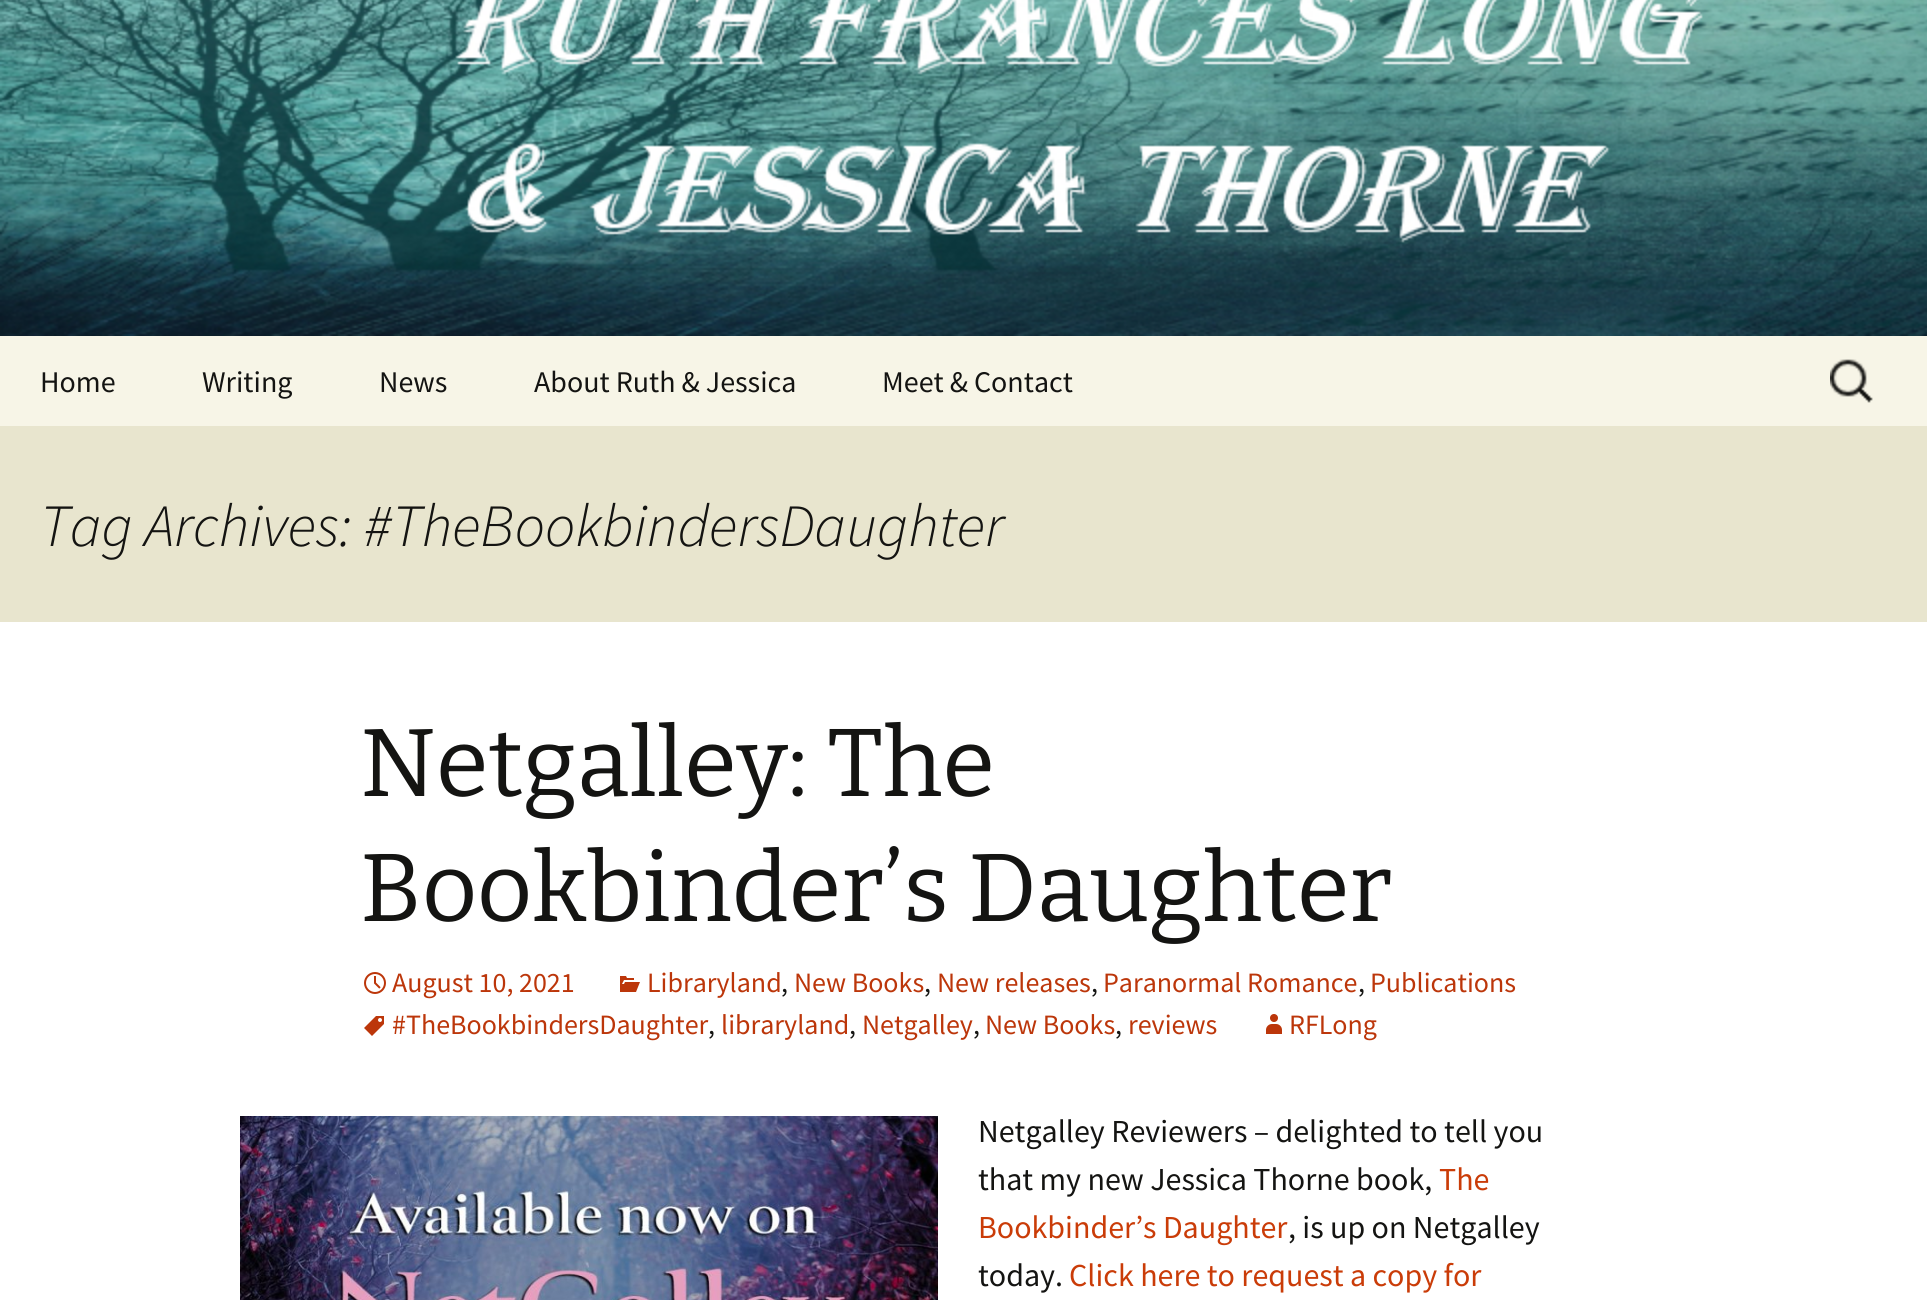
import math
import cairo

surface = cairo.ImageSurface(cairo.FORMAT_RGB24, 1927, 1300)
c = cairo.Context(surface)
options = cairo.FontOptions()
options.set_hint_metrics(cairo.HINT_METRICS_OFF)
options.set_hint_style(cairo.HINT_STYLE_NONE)
c.set_font_options(options)
c.set_miter_limit(4)
def C(code):
 c.set_source_rgb(*(v / 255 for v in bytes.fromhex(code[-6:])))
def F(family, size, italic, bold):
 c.select_font_face(family, cairo.FONT_SLANT_ITALIC if italic else cairo.FONT_SLANT_NORMAL, cairo.FONT_WEIGHT_BOLD if bold else cairo.FONT_WEIGHT_NORMAL)
 c.set_font_size(size)
def T(x, y, s):
 c.move_to(x, y)
 c.show_text(s)
def R(x, y, w, h):
 c.rectangle(x, y, w, h)
 c.fill()
def I(path, x, y, w, h):
 c.save()
 c.set_source_surface(cairo.ImageSurface.create_from_png(path), x, y)
 c.rectangle(x, y, w, h)
 c.fill()
 c.restore()
C('ffffff')
c.paint()
I('1.png',0,0,1927,336)
C('f7f5e7')
R(0,336,1927,90)
F('Source Sans Pro',30,0,0)
C('141412')
T(40,392,'Home')
T(202,392,'Writing')
T(379,392,'News')
T(534,392,'About Ruth & Jessica')
T(882,392,'Meet & Contact')
I('2.png',1830,359,43,44)
C('e8e5ce')
R(0,426,1927,196)
F('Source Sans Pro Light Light',60,1,0)
C('141412')
T(40,546,'Tag Archives: #TheBookbindersDaughter')
F('Bitter Thin',96,0,0)
T(360,796,'Netgalley: The')
T(360,921,'Bookbinder’s Daughter')
I('3.png',364,972,22,22)
F('Source Sans Pro',28,0,0)
C('bc360a')
T(392,992,'August 10, 2021')
I('4.png',620,976,20,16)
T(647,992,'Libraryland')
C('141412')
T(781,992,',')
C('bc360a')
T(794,992,'New Books')
C('141412')
T(924,992,',')
C('bc360a')
T(937,992,'New releases')
C('141412')
T(1091,992,',')
C('bc360a')
T(1103,992,'Paranormal Romance')
C('141412')
T(1358,992,',')
C('bc360a')
T(1370,992,'Publications')
I('5.png',364,1016,20,20)
T(392,1034,'#TheBookbindersDaughter')
C('141412')
T(708,1034,',')
C('bc360a')
T(721,1034,'libraryland')
C('141412')
T(849,1034,',')
C('bc360a')
T(862,1034,'Netgalley')
C('141412')
T(973,1034,',')
C('bc360a')
T(985,1034,'New Books')
C('141412')
T(1115,1034,',')
C('bc360a')
T(1128,1034,'reviews')
I('6.png',1266,1014,16,20)
T(1289,1034,'RFLong')
I('7.png',240,1116,698,184)
F('Source Sans Pro',32,0,0)
C('141412')
T(978,1142,'Netgalley Reviewers – delighted to tell you')
T(978,1190,'that my new Jessica Thorne book,')
C('ca3c08')
T(1439,1190,'The')
T(978,1238,'Bookbinder’s Daughter')
C('141412')
T(1288,1238,', is up on Netgalley')
T(978,1286,'today.')
C('ca3c08')
T(1069,1286,'Click here to request a copy for')
surface.write_to_png('o.png')
